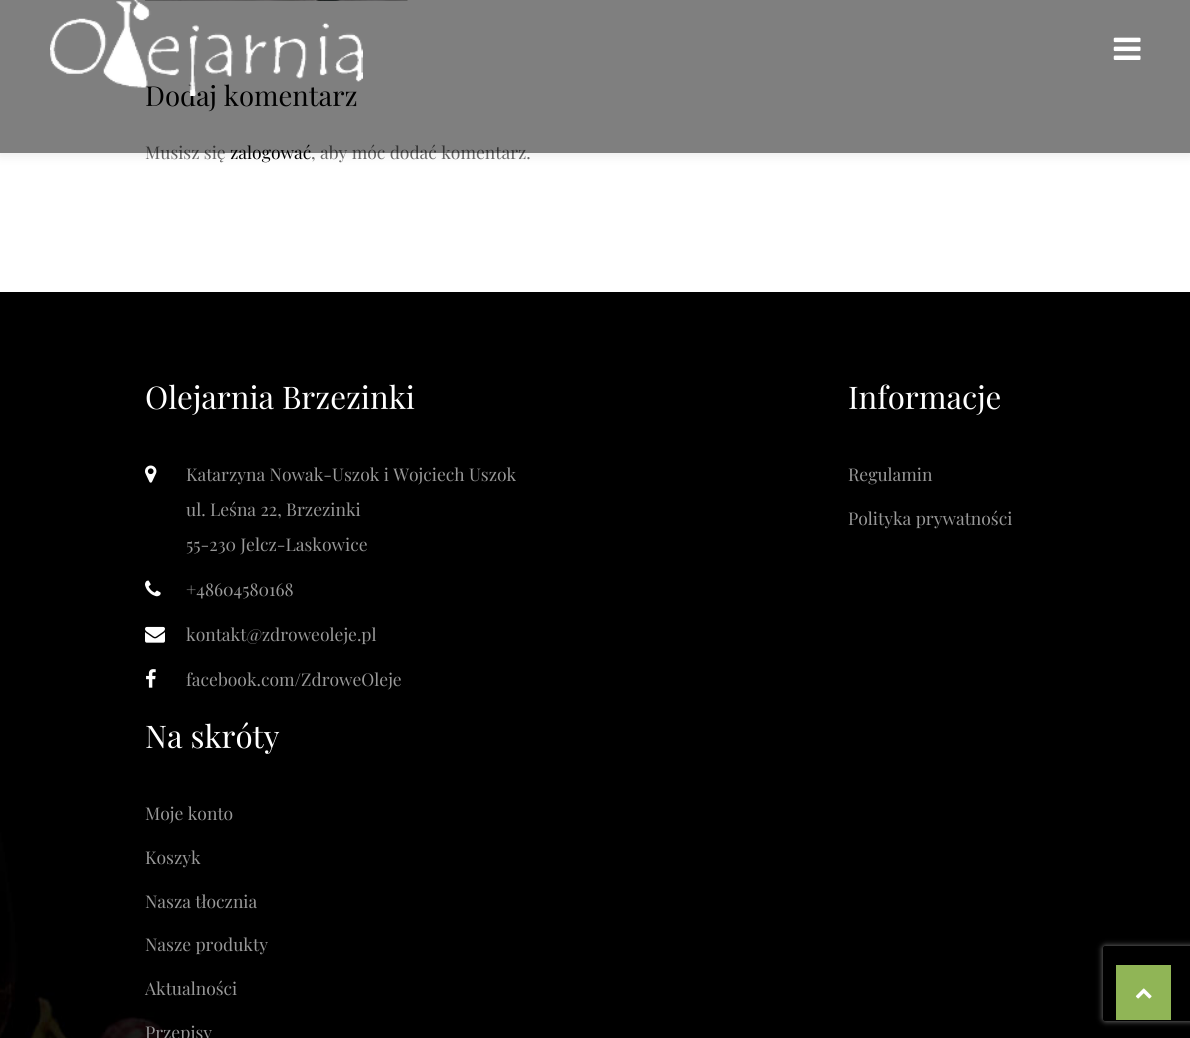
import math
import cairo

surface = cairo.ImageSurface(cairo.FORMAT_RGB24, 1190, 1038)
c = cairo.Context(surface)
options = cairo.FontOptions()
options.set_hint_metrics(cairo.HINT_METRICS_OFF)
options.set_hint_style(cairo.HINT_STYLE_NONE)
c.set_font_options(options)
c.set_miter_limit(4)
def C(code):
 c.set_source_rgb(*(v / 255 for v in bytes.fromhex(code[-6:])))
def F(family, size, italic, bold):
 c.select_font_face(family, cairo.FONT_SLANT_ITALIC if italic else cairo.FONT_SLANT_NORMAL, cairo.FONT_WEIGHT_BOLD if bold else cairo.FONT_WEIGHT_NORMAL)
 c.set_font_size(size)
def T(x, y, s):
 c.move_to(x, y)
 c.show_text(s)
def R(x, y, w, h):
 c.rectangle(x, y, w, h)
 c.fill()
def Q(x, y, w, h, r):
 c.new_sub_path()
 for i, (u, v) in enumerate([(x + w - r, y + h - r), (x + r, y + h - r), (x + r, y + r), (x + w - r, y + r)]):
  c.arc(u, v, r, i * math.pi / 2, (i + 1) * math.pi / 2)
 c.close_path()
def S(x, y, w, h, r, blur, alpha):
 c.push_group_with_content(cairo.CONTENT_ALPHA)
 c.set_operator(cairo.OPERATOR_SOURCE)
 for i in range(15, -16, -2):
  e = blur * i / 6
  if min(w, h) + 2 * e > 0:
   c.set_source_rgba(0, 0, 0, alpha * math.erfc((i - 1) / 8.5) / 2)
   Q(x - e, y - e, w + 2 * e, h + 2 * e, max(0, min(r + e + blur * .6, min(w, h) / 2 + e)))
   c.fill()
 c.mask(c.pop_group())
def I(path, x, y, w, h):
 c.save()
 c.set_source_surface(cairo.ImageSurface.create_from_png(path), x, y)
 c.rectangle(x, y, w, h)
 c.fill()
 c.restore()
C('ffffff')
c.paint()
I('3.png',145,0,263,1)
c.save()
c.set_fill_rule(cairo.FILL_RULE_EVEN_ODD)
c.new_path()
c.move_to(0,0)
c.line_to(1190,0)
c.line_to(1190,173)
c.line_to(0,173)
c.close_path()
c.move_to(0,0)
c.line_to(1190,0)
c.line_to(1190,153)
c.line_to(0,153)
c.close_path()
c.clip()
C('000000')
S(0,1,1190,153,0,6,.1)
c.restore()
F('Playfair Display',27.5,0,0)
C('000000')
T(145,106,'Dodaj komentarz')
F('Playfair Display',17.5,0,0)
C('666666')
T(145,159,'Musisz się')
C('000000')
T(230,159,'zalogować')
C('666666')
T(311,159,', aby móc dodać komentarz.')
c.set_source_rgba(0,0,0,0.5)
R(0,0,1190,153)
I('1.png',50,0,313,96)
I('2.png',1113,37,28,23)
I('4.png',0,292,1190,746)
F('Playfair Display',31.25,0,0)
C('ffffff')
T(145,409,'Olejarnia Brzezinki')
I('5.png',145,465,12,18)
F('Playfair Display',17.5,0,0)
C('999999')
T(186,481,'Katarzyna Nowak-Uszok i Wojciech Uszok')
T(186,516,'ul. Leśna 22, Brzezinki')
T(186,551,'55-230 Jelcz-Laskowice')
I('6.png',145,580,16,17)
T(186,596,'+48604580168')
I('7.png',145,626,20,17)
T(186,641,'kontakt@zdroweoleje.pl')
I('8.png',146,669,10,19)
T(186,686,'facebook.com/ZdroweOleje')
F('Playfair Display',31.25,0,0)
C('ffffff')
T(848,409,'Informacje')
F('Playfair Display',17.5,0,0)
C('999999')
T(848,481,'Regulamin')
T(848,525,'Polityka prywatności')
F('Playfair Display',31.25,0,0)
C('ffffff')
T(145,748,'Na skróty')
F('Playfair Display',17.5,0,0)
C('999999')
T(145,820,'Moje konto')
T(145,864,'Koszyk')
T(145,908,'Nasza tłocznia')
T(145,951,'Nasze produkty')
T(145,995,'Aktualności')
T(145,1039,'Przepisy')
c.save()
c.set_fill_rule(cairo.FILL_RULE_EVEN_ODD)
c.new_path()
c.move_to(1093,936)
c.line_to(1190,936)
c.line_to(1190,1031)
c.line_to(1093,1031)
c.close_path()
c.move_to(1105.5,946)
c.line_to(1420.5,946)
c.curve_to(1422,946,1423,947,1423,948.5)
c.line_to(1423,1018.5)
c.curve_to(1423,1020,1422,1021,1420.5,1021)
c.line_to(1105.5,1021)
c.curve_to(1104,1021,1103,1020,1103,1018.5)
c.line_to(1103,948.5)
c.curve_to(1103,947,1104,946,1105.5,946)
c.close_path()
c.clip()
C('808080')
S(1103,946,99,75,2.5,3,1)
c.restore()
C('90b556')
R(1116,965,55,55)
I('9.png',1135,988,17,11)
surface.write_to_png('o.png')
